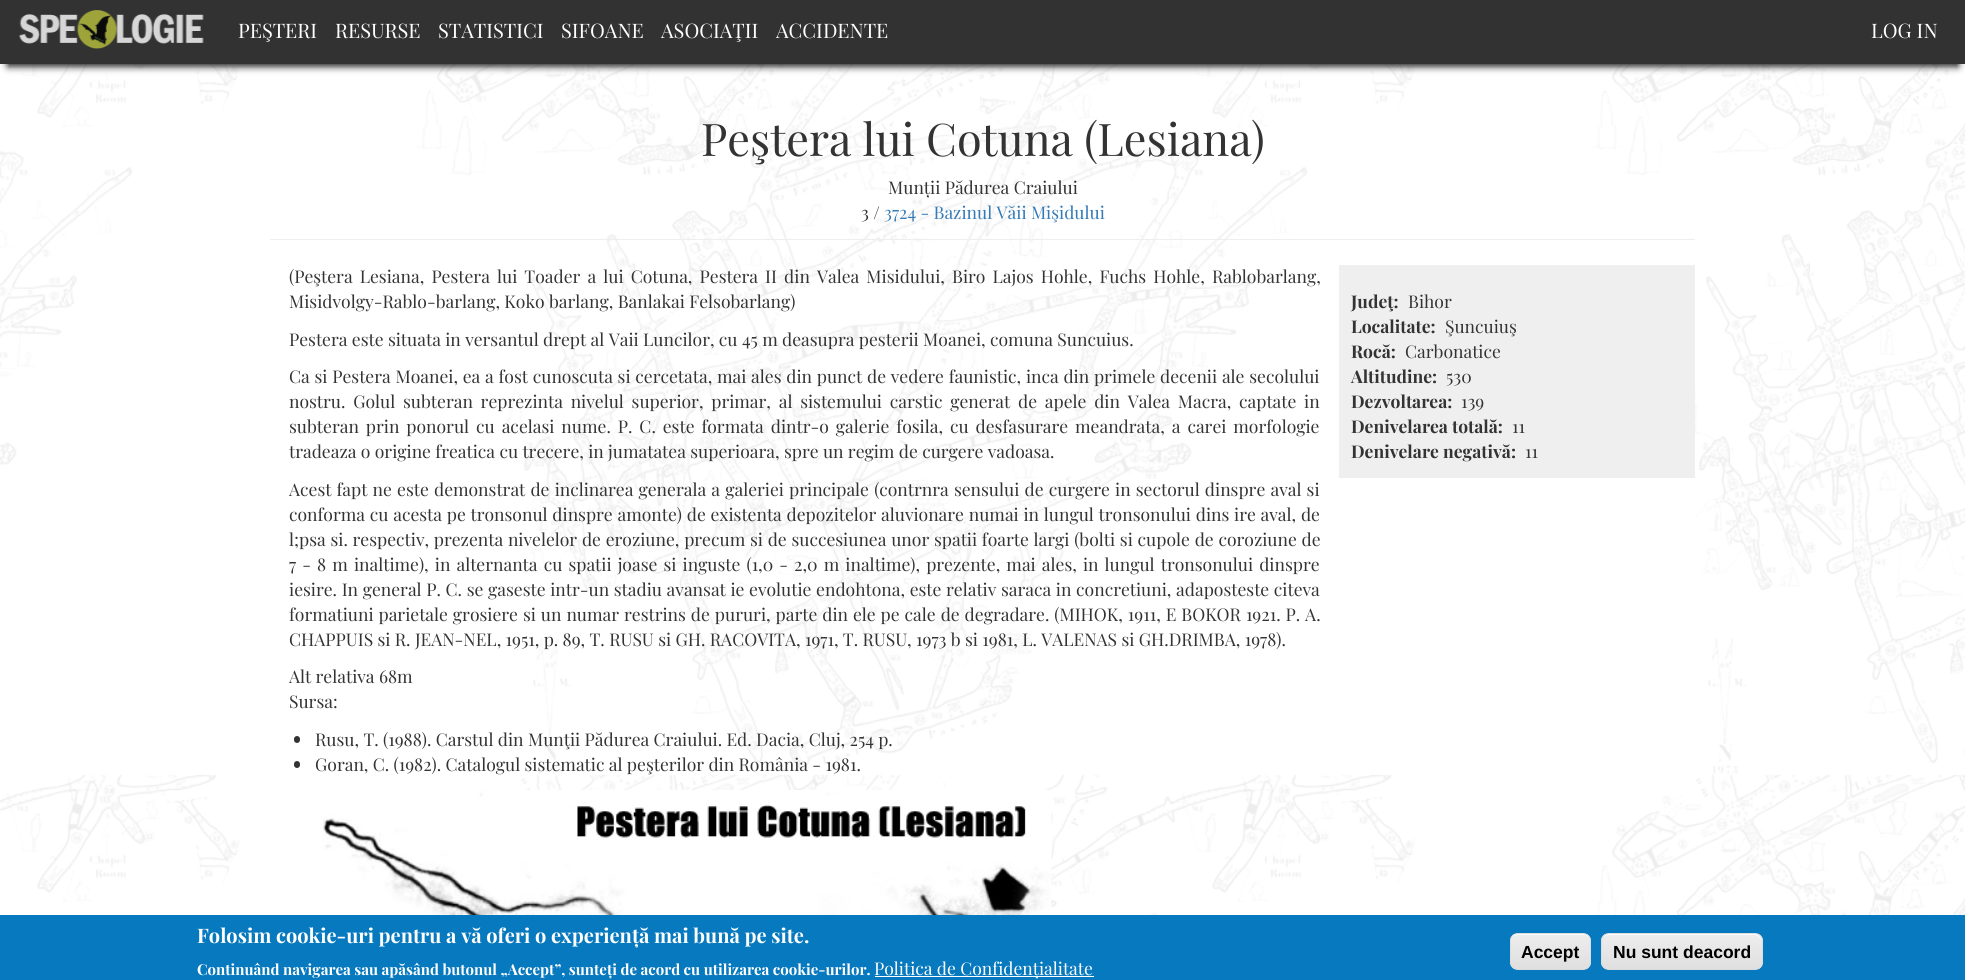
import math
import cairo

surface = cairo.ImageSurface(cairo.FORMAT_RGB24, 1965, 980)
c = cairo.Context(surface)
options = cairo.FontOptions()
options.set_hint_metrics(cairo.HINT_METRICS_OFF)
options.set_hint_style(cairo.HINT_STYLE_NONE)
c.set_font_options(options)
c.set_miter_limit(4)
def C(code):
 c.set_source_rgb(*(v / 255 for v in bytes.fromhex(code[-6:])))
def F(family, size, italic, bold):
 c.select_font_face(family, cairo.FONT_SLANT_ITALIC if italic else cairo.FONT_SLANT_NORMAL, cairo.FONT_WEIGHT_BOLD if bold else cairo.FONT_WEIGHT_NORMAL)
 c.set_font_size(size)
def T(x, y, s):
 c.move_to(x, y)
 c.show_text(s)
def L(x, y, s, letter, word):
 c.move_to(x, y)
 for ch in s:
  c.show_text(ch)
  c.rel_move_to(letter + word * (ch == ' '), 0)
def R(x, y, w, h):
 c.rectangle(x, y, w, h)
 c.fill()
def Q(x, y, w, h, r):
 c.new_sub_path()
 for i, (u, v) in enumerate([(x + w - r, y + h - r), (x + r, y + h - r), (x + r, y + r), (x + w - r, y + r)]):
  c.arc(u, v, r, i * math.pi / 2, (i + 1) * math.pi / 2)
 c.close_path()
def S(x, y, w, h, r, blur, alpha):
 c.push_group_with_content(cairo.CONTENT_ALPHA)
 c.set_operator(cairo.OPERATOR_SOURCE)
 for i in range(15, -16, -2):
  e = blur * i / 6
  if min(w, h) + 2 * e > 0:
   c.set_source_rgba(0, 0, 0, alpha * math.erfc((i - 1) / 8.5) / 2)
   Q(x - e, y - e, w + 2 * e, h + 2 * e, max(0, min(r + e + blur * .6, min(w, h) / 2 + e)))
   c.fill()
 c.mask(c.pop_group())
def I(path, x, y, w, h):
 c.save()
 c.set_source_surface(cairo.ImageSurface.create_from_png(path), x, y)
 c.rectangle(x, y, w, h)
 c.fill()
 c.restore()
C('ffffff')
c.paint()
I('1.png',0,64,1965,851)
C('000000')
S(8,18,1950,48,0,4,1)
C('323232')
R(0,0,1965,64)
I('2.png',18,10,186,39)
F('Playfair Display',20,0,0)
C('ffffff')
T(238,38,'PEŞTERI')
T(335,38,'RESURSE')
T(438,38,'STATISTICI')
T(561,38,'SIFOANE')
T(661,38,'ASOCIAŢII')
T(776,38,'ACCIDENTE')
T(1871,38,'LOG IN')
C('eeeeee')
R(270,239,1425,1)
F('Playfair Display',45,0,0)
C('333333')
T(701,156,'Peştera lui Cotuna (Lesiana)')
F('Playfair Display',17.5,0,0)
T(888,194,'Munții Pădurea Craiului')
T(861,219,'3 /')
C('337ab7')
T(884,219,'3724 - Bazinul Văii Mişidului')
C('333333')
L(289,283,'(Peştera Lesiana, Pestera lui Toader a lui Cotuna, Pestera II din Valea Misidului, Biro Lajos Hohle, Fuchs Hohle, Rablobarlang,',0,2.75)
T(289,308,'Misidvolgy-Rablo-barlang, Koko barlang, Banlakai Felsobarlang)')
T(289,346,'Pestera este situata in versantul drept al Vaii Luncilor, cu 45 m deasupra pesterii Moanei, comuna Suncuius.')
L(289,383,'Ca si Pestera Moanei, ea a fost cunoscuta si cercetata, mai ales din punct de vedere faunistic, inca din primele decenii ale secolului',0,.4)
L(289,408,'nostru. Golul subteran reprezinta nivelul superior, primar, al sistemului carstic generat de apele din Valea Macra, captate in',0,3.4)
L(289,433,'subteran prin ponorul cu acelasi nume. P. C. este formata dintr-o galerie fosila, cu desfasurare meandrata, a carei morfologie',0,2.6)
T(289,458,'tradeaza o origine freatica cu trecere, in jumatatea superioara, spre un regim de curgere vadoasa.')
L(289,496,'Acest fapt ne este demonstrat de inclinarea generala a galeriei principale (contrnra sensului de curgere in sectorul dinspre aval si',0,.8)
L(289,521,'conforma cu acesta pe tronsonul dinspre amonte) de existenta depozitelor aluvionare numai in lungul tronsonului dins ire aval, de',0,.4)
L(289,546,'l;psa si. respectiv, prezenta nivelelor de eroziune, precum si de succesiunea unor spatii foarte largi (bolti si cupole de coroziune de',0,.4)
L(289,571,'7 - 8 m inaltime), in alternanta cu spatii joase si inguste (1,0 - 2,0 m inaltime), prezente, mai ales, in lungul tronsonului dinspre',0,1.75)
L(289,596,'iesire. In general P. C. se gaseste intr-un stadiu avansat ie evolutie endohtona, este relativ saraca in concretiuni, adaposteste citeva',0,.3)
L(289,621,'formatiuni parietale grosiere si un numar restrins de pururi, parte din ele pe cale de degradare. (MIHOK, 1911, E BOKOR 1921. P. A.',0,.6)
T(289,646,'CHAPPUIS si R. JEAN-NEL, 1951, p. 89, T. RUSU si GH. RACOVITA, 1971, T. RUSU, 1973 b si 1981, L. VALENAS si GH.DRIMBA, 1978).')
T(289,683,'Alt relativa 68m')
T(289,708,'Sursa:')
Q(294,736,6,7,3)
c.fill()
T(315,746,'Rusu, T. (1988). Carstul din Munţii Pădurea Craiului. Ed. Dacia, Cluj, 254 p.')
Q(294,761,6,7,3)
c.fill()
T(315,771,'Goran, C. (1982). Catalogul sistematic al peşterilor din România - 1981.')
I('3.png',303,790,749,125)
C('efefef')
R(1339,265,356,213)
F('Playfair Display',17.5,0,1)
C('333333')
T(1351,308,'Judeţ:')
F('Playfair Display',17.5,0,0)
T(1408,308,'Bihor')
F('Playfair Display',17.5,0,1)
T(1351,333,'Localitate:')
F('Playfair Display',17.5,0,0)
T(1445,333,'Şuncuiuş')
F('Playfair Display',17.5,0,1)
T(1351,358,'Rocă:')
F('Playfair Display',17.5,0,0)
T(1405,358,'Carbonatice')
F('Playfair Display',17.5,0,1)
T(1351,383,'Altitudine:')
F('Playfair Display',17.5,0,0)
T(1446,383,'530')
F('Playfair Display',17.5,0,1)
T(1351,408,'Dezvoltarea:')
F('Playfair Display',17.5,0,0)
T(1461,408,'139')
F('Playfair Display',17.5,0,1)
T(1351,433,'Denivelarea totală:')
F('Playfair Display',17.5,0,0)
T(1512,433,'11')
F('Playfair Display',17.5,0,1)
T(1351,458,'Denivelare negativă:')
F('Playfair Display',17.5,0,0)
T(1525,458,'11')
C('0779bf')
R(0,915,1965,65)
F('Playfair Display',20,0,1)
C('ffffff')
T(197,943,'Folosim cookie-uri pentru a vă oferi o experiență mai bună pe site.')
F('Playfair Display',15,0,1)
T(197,975,'Continuând navigarea sau apăsând butonul „Accept”, sunteți de acord cu utilizarea cookie-urilor.')
R(875,976,219,1)
F('Playfair Display',17.5,0,0)
T(874,975,'Politica de Confidențialitate')
c.save()
Q(1510,933,81,37,8)
c.clip()
gradient = cairo.LinearGradient(1551,934,1551,969)
gradient.add_color_stop_rgba(.05,0.929,0.929,0.929,1)
gradient.add_color_stop_rgba(1,0.875,0.875,0.875,1)
c.set_source(gradient)
R(1510,934,81,35)
c.restore()
c.new_path()
c.move_to(1518,935)
c.line_to(1584,935)
c.curve_to(1587,935,1590,938,1590,941)
c.curve_to(1590,931,1580,934,1573,934)
c.line_to(1528,934)
c.curve_to(1521,934,1511,931,1511,941)
c.curve_to(1511,938,1514,935,1518,935)
c.close_path()
c.fill()
Q(1510.5,933.5,80,36,7.5)
C('dcdcdc')
c.set_line_width(1)
c.stroke()
F('Liberation Sans',17.5,0,1)
C('000000')
T(1521,958,'Accept')
c.save()
Q(1601,933,162,37,8)
c.clip()
gradient = cairo.LinearGradient(1682,934,1682,969)
gradient.add_color_stop_rgba(.05,0.929,0.929,0.929,1)
gradient.add_color_stop_rgba(1,0.875,0.875,0.875,1)
c.set_source(gradient)
R(1601,934,162,35)
c.restore()
C('ffffff')
c.new_path()
c.move_to(1609,935)
c.line_to(1755,935)
c.curve_to(1758,935,1761,938,1761,941)
c.line_to(1761,940)
c.curve_to(1761,937,1758,934,1755,934)
c.line_to(1609,934)
c.curve_to(1607,934,1605,935,1604,937)
c.curve_to(1605,936,1607,935,1609,935)
c.close_path()
c.fill()
Q(1601.5,933.5,161,36,7.5)
C('dcdcdc')
c.stroke()
C('000000')
T(1613,958,'Nu sunt deacord')
surface.write_to_png('o.png')
